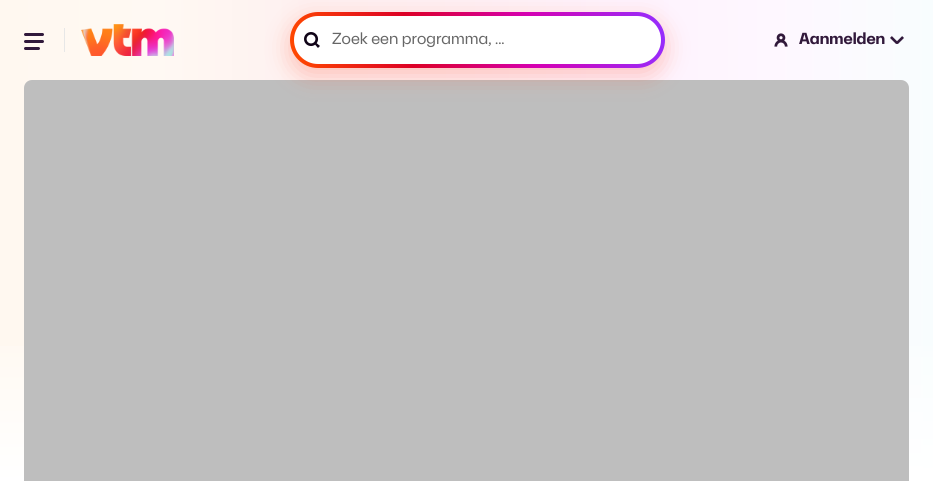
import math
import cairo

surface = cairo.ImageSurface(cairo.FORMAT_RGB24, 933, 481)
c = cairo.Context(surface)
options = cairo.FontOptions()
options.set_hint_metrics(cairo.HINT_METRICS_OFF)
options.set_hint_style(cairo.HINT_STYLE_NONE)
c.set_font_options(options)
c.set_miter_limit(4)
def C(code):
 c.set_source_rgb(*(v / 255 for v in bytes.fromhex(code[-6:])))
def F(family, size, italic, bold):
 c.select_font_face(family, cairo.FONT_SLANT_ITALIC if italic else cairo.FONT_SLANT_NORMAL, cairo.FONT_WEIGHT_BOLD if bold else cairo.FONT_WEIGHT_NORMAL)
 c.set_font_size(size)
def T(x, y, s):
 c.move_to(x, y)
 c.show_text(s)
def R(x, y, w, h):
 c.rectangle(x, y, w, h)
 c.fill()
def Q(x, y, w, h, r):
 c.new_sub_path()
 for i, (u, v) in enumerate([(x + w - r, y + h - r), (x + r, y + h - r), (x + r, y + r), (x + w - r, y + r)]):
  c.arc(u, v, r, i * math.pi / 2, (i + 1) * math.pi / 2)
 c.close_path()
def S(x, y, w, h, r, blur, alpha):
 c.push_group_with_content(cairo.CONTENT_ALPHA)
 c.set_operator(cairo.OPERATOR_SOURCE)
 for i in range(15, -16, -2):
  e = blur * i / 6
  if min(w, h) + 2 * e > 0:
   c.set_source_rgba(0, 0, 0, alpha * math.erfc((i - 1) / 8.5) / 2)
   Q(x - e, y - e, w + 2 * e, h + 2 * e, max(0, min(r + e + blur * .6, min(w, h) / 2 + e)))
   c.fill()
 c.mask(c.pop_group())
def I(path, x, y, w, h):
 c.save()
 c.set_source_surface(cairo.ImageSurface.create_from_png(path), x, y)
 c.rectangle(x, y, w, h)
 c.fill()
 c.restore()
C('ffffff')
c.paint()
gradient = cairo.LinearGradient(0,241,933,240)
gradient.add_color_stop_rgba(0,1,0.973,0.941,1)
gradient.add_color_stop_rgba(.17,1,0.976,0.953,1)
gradient.add_color_stop_rgba(.33,0.996,0.941,0.941,1)
gradient.add_color_stop_rgba(.5,0.996,0.941,0.957,1)
gradient.add_color_stop_rgba(.67,0.996,0.949,0.992,1)
gradient.add_color_stop_rgba(.83,0.996,0.969,1,1)
gradient.add_color_stop_rgba(1,0.973,0.992,0.996,1)
c.set_source(gradient)
R(0,0,933,481)
gradient = cairo.LinearGradient(466,0,467,481)
gradient.add_color_stop_rgba(.66,1,1,1,0)
gradient.add_color_stop_rgba(1,1,1,1,1)
c.set_source(gradient)
R(0,346,933,135)
C('e7e7e7')
R(64,28,1,24)
C('31193b')
Q(24,33,20,3,1.5)
c.fill()
Q(24,40,20,3,1.5)
c.fill()
Q(24,47,16,3,1.5)
c.fill()
I('1.png',81,24,93,32)
C('bebebe')
Q(24,80,885,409,8)
c.fill()
C('ff5c3d')
S(290,20,375,56,28,12,.32)
gradient = cairo.LinearGradient(664,7.6,291,72)
gradient.add_color_stop_rgba(0,0.584,0.18,1,1)
gradient.add_color_stop_rgba(.36,0.835,0,0.698,1)
gradient.add_color_stop_rgba(.68,0.863,0,0.145,1)
gradient.add_color_stop_rgba(.99,1,0.282,0,1)
c.set_source(gradient)
Q(290,12,375,56,28)
c.fill()
C('ffffff')
Q(294,16,367,48,24)
c.fill()
I('2.png',304,32,16,16)
F('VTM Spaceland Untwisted',16,0,0)
C('666666')
T(332,44,'Zoek een programma, ...')
I('3.png',774,33,14,14)
F('VTM Spaceland Untwisted',16,0,1)
C('31193b')
T(799,44,'Aanmelden')
I('4.png',890,36,14,8)
surface.write_to_png('o.png')
